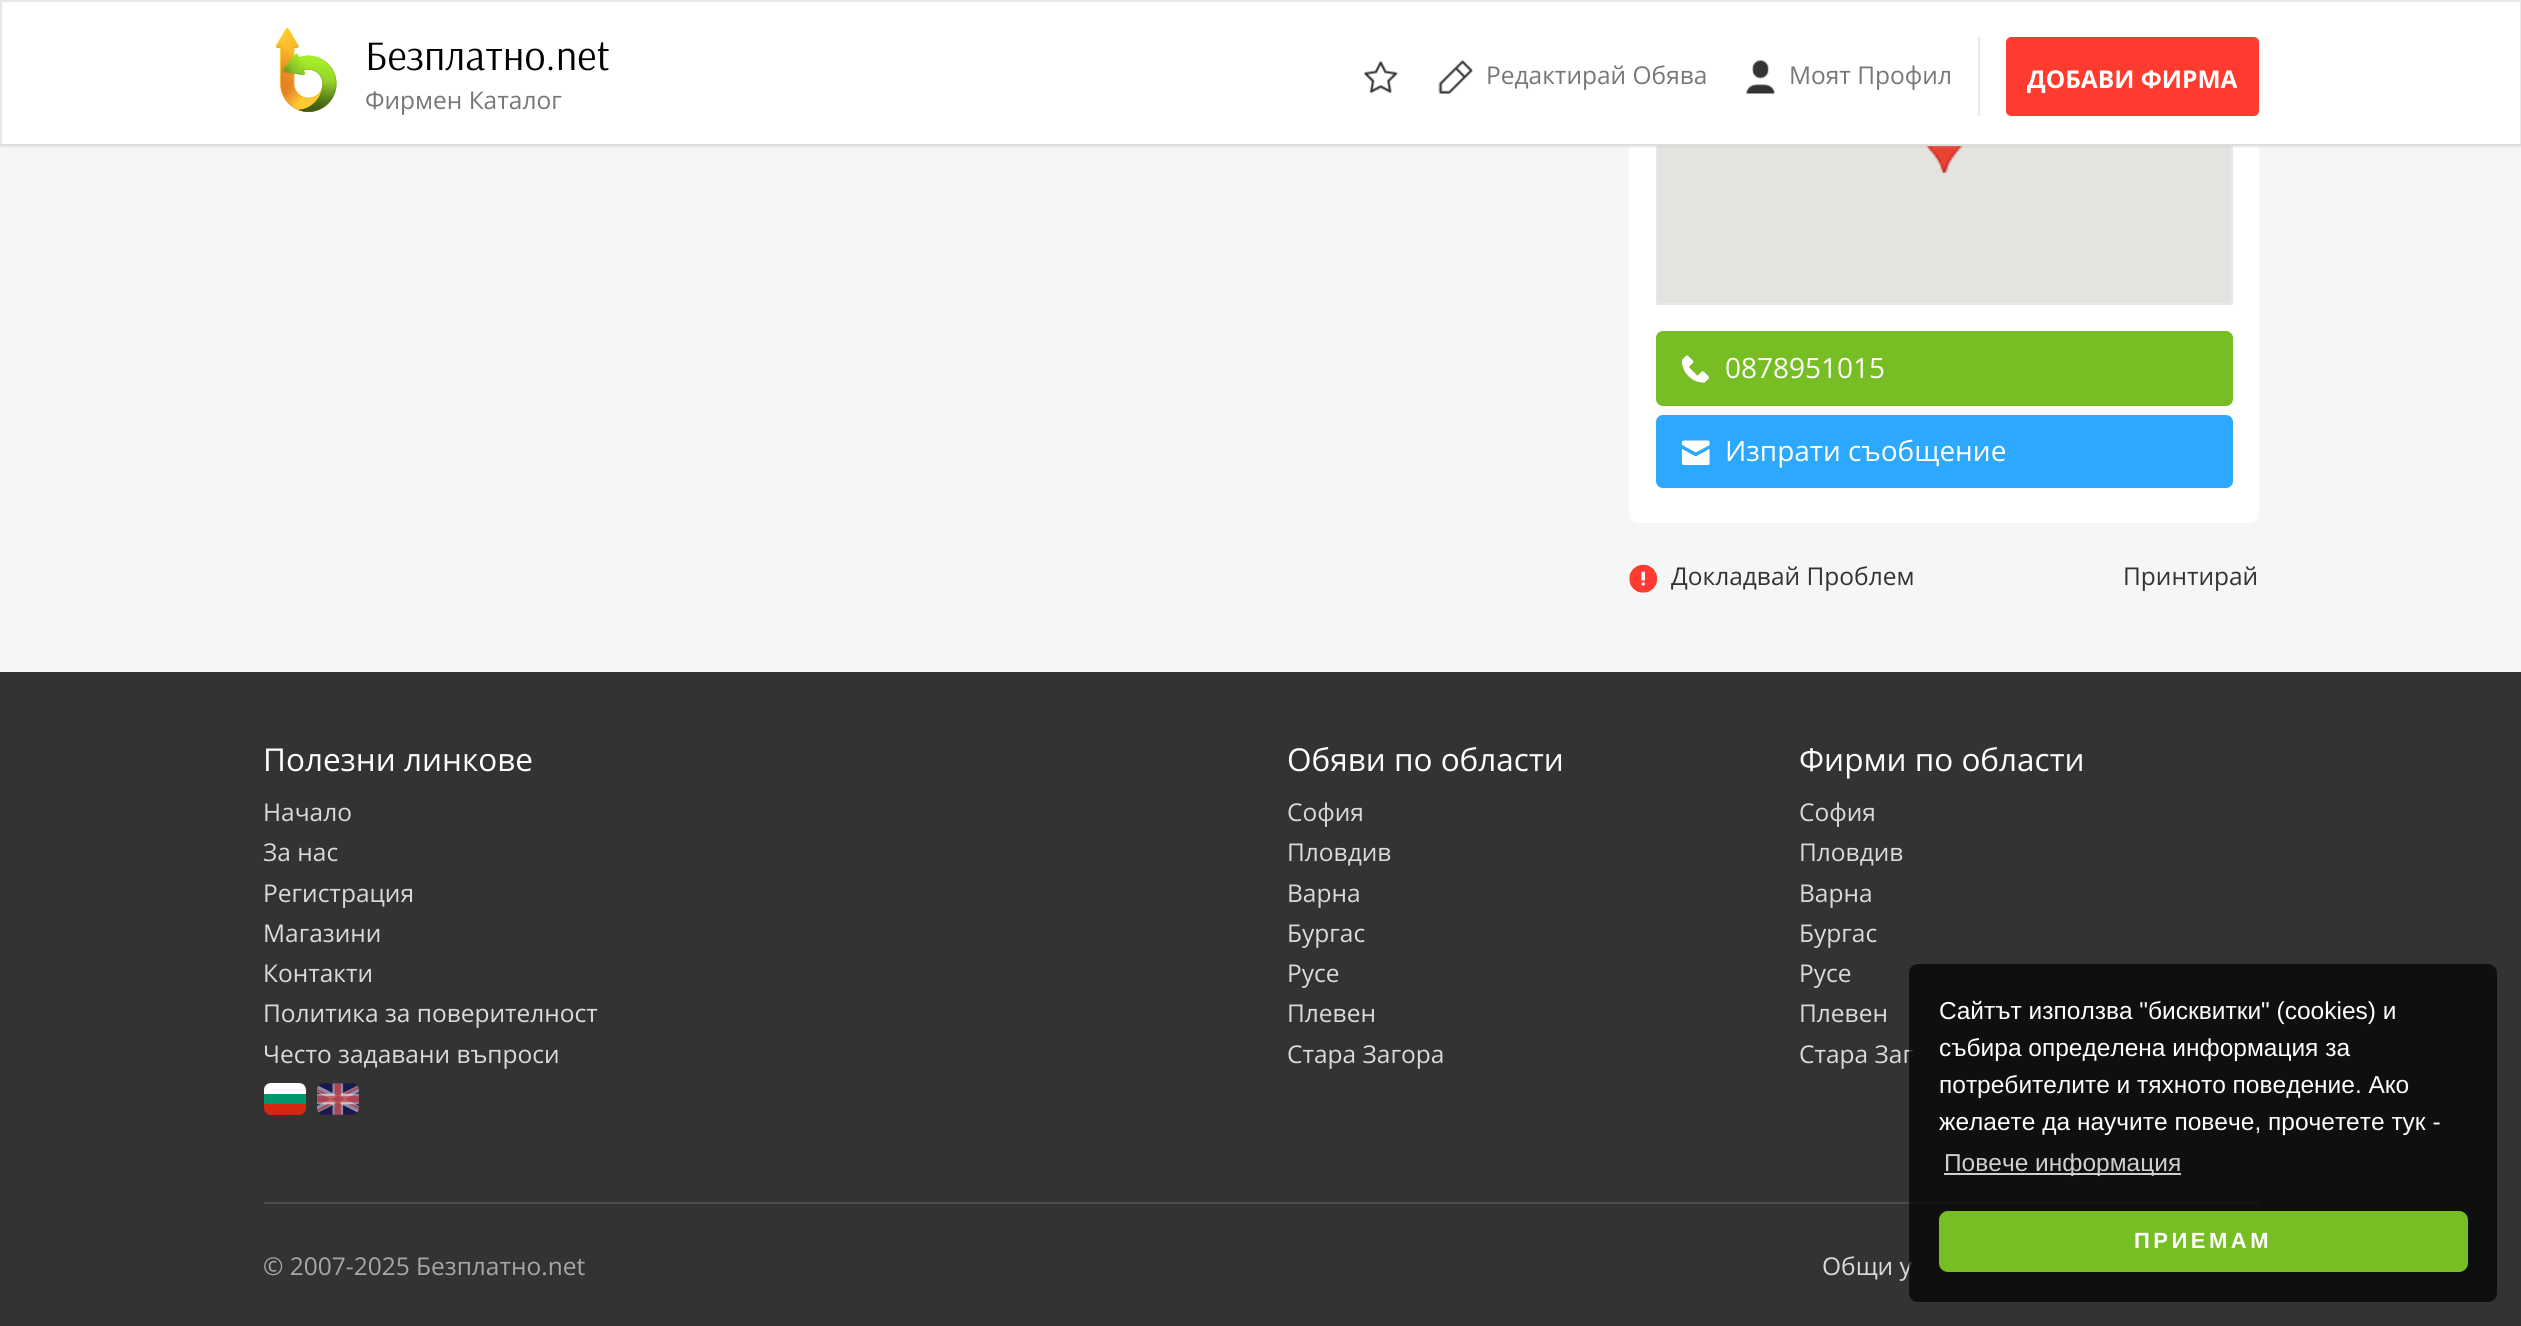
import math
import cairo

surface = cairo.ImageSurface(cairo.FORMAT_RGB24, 2521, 1326)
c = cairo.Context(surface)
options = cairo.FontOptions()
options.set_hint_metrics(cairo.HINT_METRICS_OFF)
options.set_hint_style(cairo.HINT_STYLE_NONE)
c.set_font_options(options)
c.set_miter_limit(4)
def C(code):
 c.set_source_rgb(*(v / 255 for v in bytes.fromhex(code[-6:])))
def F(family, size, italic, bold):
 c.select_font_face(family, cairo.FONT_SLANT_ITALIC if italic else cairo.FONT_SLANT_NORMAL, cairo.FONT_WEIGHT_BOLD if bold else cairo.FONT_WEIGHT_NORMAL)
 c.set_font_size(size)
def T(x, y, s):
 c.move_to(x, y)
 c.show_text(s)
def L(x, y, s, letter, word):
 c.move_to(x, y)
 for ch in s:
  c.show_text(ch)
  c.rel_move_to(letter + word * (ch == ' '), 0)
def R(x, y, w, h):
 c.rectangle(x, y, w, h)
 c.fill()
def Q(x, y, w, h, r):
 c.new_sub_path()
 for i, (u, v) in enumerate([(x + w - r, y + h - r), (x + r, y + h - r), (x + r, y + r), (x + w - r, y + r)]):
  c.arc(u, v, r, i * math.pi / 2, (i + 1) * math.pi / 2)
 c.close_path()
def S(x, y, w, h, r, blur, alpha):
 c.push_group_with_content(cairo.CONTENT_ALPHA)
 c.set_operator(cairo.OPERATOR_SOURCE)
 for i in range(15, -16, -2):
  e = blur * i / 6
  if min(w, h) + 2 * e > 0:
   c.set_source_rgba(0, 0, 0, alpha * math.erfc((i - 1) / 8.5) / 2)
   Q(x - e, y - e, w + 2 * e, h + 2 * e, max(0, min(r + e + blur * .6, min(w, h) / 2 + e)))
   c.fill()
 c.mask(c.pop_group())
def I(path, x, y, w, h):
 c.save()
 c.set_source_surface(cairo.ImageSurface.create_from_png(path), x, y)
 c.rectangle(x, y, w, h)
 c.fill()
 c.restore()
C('f6f6f6')
c.paint()
C('ffffff')
c.new_path()
c.move_to(1629,-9)
c.line_to(2259,-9)
c.line_to(2259,514)
c.curve_to(2259,519,2255,523,2250,523)
c.line_to(1638,523)
c.curve_to(1633,523,1629,519,1629,514)
c.close_path()
c.fill()
c.rectangle(1657,43,575,261)
C('e9e9e9')
c.stroke()
C('e5e3df')
R(1657,146,574,157)
I('5.png',1925,146,38,27)
C('b4b4b4')
S(0,2,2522,145,0,1,.3)
C('ffffff')
R(2,2,2518,142)
C('e7e7e7')
R(0,0,2521,2)
R(2520,0,1,145)
C('dddddd')
R(0,144,2521,2)
C('e7e7e7')
R(0,0,2,145)
I('1.png',276,28,61,84)
F('Arsenal',42,0,0)
C('000000')
T(365,70,'Безплатно.net')
F('Open Sans',24.5,0,0)
C('777777')
T(365,109,'Фирмен Каталог')
I('2.png',1364,61,34,33)
I('3.png',1438,60,35,34)
T(1486,84,'Редактирай Обява')
I('4.png',1746,60,29,34)
T(1789,84,'Моят Профил')
C('e9e9e9')
R(1978,37,2,79)
C('ff3b30')
Q(2008,39,249,75,3)
c.fill_preserve()
c.set_line_width(4)
c.stroke()
F('Open Sans',24.5,0,1)
C('ffffff')
T(2027,88,'ДОБАВИ ФИРМА')
C('76be23')
Q(1656,331,577,75,7)
c.fill()
I('6.png',1681,355,28,28)
F('Open Sans',28,0,0)
C('ffffff')
T(1725,378,'0878951015')
C('2ca8ff')
Q(1656,415,577,73,7)
c.fill()
I('7.png',1681,440,29,25)
C('ffffff')
T(1725,461,'Изпрати съобщение')
I('8.png',1629,564,29,29)
F('Open Sans',24.5,0,0)
C('333333')
T(1671,585,'Докладвай Проблем')
T(2123,585,'Принтирай')
R(0,672,2521,654)
F('Open Sans',31.5,0,0)
C('ffffff')
T(263,771,'Полезни линкове')
F('Open Sans',24.5,0,0)
C('dadada')
T(263,821,'Начало')
T(263,861,'За нас')
T(263,902,'Регистрация')
T(263,942,'Магазини')
T(263,982,'Контакти')
T(263,1022,'Политика за поверителност')
T(263,1063,'Често задавани въпроси')
C('ffffff')
c.new_path()
c.move_to(271,1083)
c.line_to(299,1083)
c.curve_to(303,1083,306,1086,306,1090)
c.line_to(306,1094)
c.line_to(264,1094)
c.line_to(264,1090)
c.curve_to(264,1086,267,1083,271,1083)
c.close_path()
c.fill()
I('9.png',317,1083,42,32)
C('00966e')
R(264,1094,42,10)
C('d62612')
c.new_path()
c.move_to(264,1104)
c.line_to(306,1104)
c.line_to(306,1108)
c.curve_to(306,1112,303,1115,299,1115)
c.line_to(271,1115)
c.curve_to(267,1115,264,1112,264,1108)
c.close_path()
c.fill()
F('Open Sans',31.5,0,0)
C('ffffff')
T(1287,771,'Обяви по области')
F('Open Sans',24.5,0,0)
C('dadada')
T(1287,821,'София')
T(1287,861,'Пловдив')
T(1287,902,'Варна')
T(1287,942,'Бургас')
T(1287,982,'Русе')
T(1287,1022,'Плевен')
T(1287,1063,'Стара Загора')
F('Open Sans',31.5,0,0)
C('ffffff')
T(1799,771,'Фирми по области')
F('Open Sans',24.5,0,0)
C('dadada')
T(1799,821,'София')
T(1799,861,'Пловдив')
T(1799,902,'Варна')
T(1799,942,'Бургас')
T(1799,982,'Русе')
T(1799,1022,'Плевен')
T(1799,1063,'Стара Заг')
C('4d4c4c')
R(264,1202,1995,2)
C('a6a6a6')
T(263,1275,'© 2007-2025 Безплатно.net')
C('dadada')
T(1822,1275,'Общи у')
c.set_source_rgba(0,0,0,0.7)
Q(1909,964,588,338,9)
c.fill()
F('Liberation Sans',24.5,0,0)
C('ffffff')
T(1939,1019,'Сайтът използва "бисквитки" (cookies) и')
T(1939,1056,'събира определена информация за')
T(1939,1093,'потребителите и тяхното поведение. Ако')
T(1939,1130,'желаете да научите повече, прочетете тук -')
C('cfcfcf')
R(1944,1173,237,2)
T(1944,1171,'Повече информация')
C('76be23')
Q(1939,1211,529,61,9)
c.fill()
F('Liberation Sans',22,0,1)
C('ffffff')
L(2134,1248,'ПРИЕМАМ',3.5,0)
surface.write_to_png('o.png')
